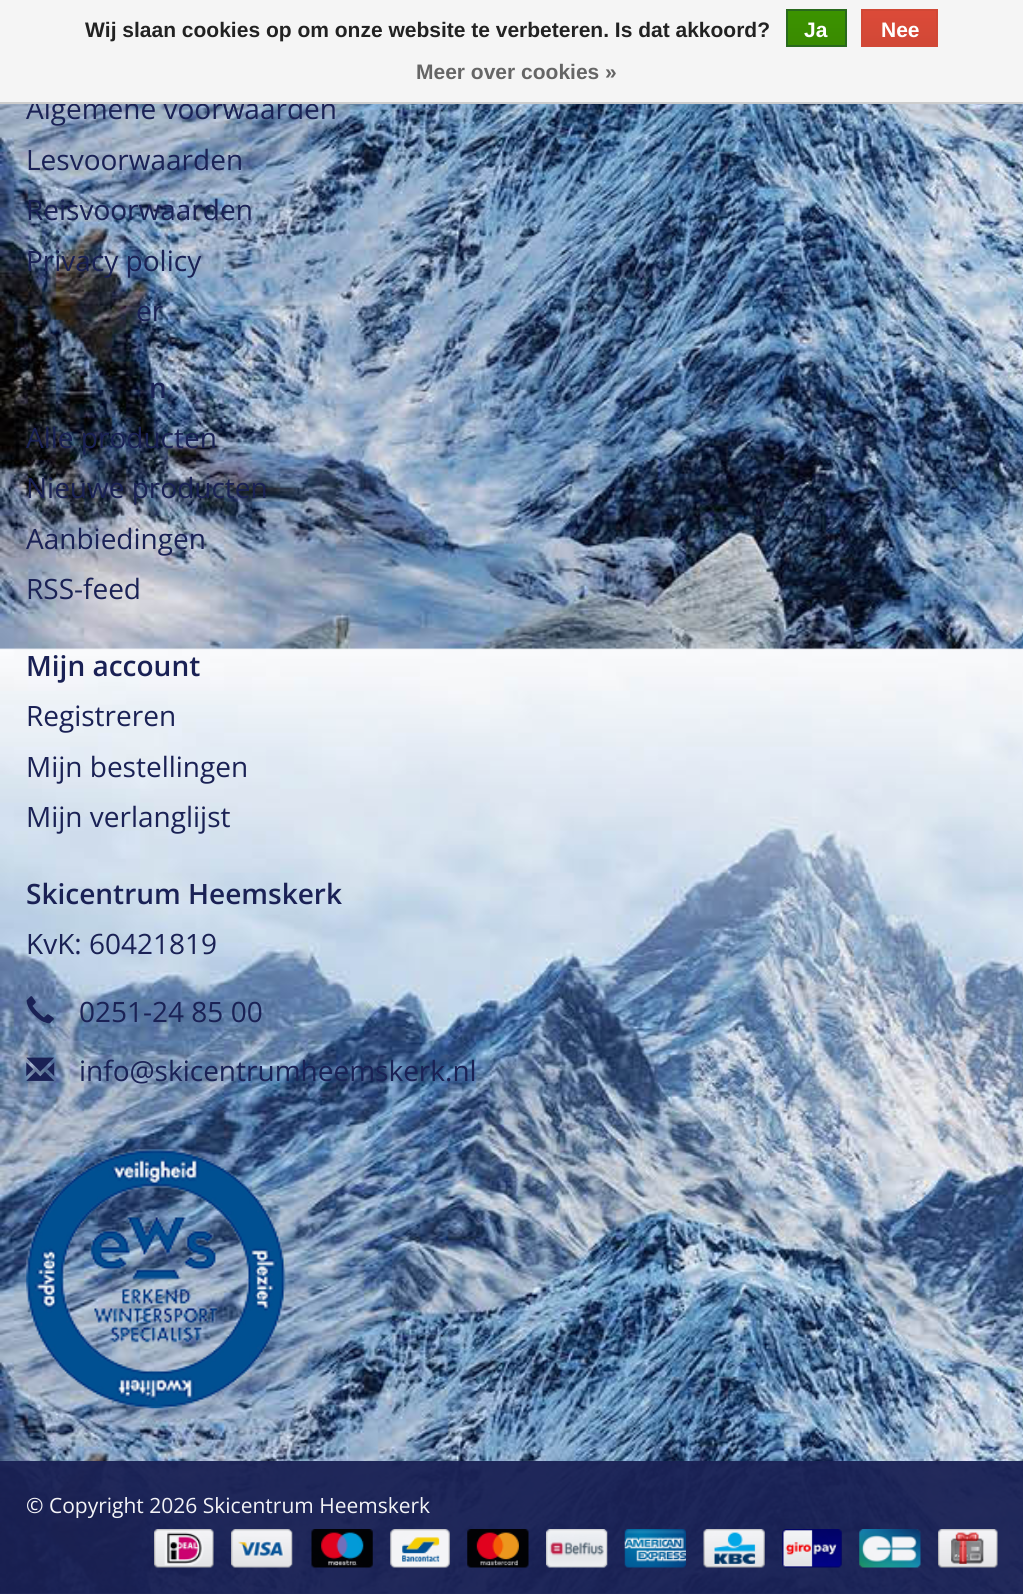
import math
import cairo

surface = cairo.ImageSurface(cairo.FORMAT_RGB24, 1023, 1594)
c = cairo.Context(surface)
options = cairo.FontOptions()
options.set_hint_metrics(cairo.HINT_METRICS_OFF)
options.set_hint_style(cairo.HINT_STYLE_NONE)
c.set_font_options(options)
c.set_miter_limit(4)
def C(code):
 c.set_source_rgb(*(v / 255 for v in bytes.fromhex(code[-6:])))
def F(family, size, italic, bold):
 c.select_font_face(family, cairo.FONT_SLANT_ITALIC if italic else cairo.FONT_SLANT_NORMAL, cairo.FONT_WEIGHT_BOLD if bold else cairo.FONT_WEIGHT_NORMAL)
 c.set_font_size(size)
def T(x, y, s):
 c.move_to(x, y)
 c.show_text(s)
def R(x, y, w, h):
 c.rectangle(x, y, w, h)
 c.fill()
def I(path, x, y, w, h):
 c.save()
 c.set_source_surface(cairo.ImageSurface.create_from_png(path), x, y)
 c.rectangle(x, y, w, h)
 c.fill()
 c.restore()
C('ffffff')
c.paint()
I('1.png',0,104,1023,1490)
F('Open Sans',28,0,0)
C('1a2155')
T(26,119,'Algemene voorwaarden')
C('f5f5f5')
R(0,0,1023,102)
C('cccccc')
R(0,102,1023,2)
F('Liberation Sans',21,0,1)
C('222222')
T(85,37,'Wij slaan cookies op om onze website te verbeteren. Is dat akkoord?')
gradient = cairo.LinearGradient(816,10,816,46)
gradient.add_color_stop_rgba(0,0.235,0.576,0,1)
gradient.add_color_stop_rgba(1,0.224,0.541,0,1)
c.set_source(gradient)
R(788,11,57,34)
c.rectangle(787,10,59,36)
C('29691d')
c.stroke()
C('ffffff')
T(804,37,'Ja')
gradient = cairo.LinearGradient(900,10,900,46)
gradient.add_color_stop_rgba(0,0.863,0.29,0.22,1)
gradient.add_color_stop_rgba(1,0.82,0.282,0.212,1)
c.set_source(gradient)
R(863,11,73,34)
c.rectangle(862,10,75,36)
C('d14836')
c.stroke()
C('ffffff')
T(881,37,'Nee')
C('666666')
T(416,79,'Meer over cookies »')
F('Open Sans',28,0,0)
C('1a2155')
T(26,170,'Lesvoorwaarden')
T(26,220,'Reisvoorwaarden')
T(26,271,'Privacy policy')
T(136,321,'er')
F('Open Sans SemiBold',28,0,0)
T(149,398,'n')
F('Open Sans',28,0,0)
T(26,448,'Alle producten')
T(26,498,'Nieuwe producten')
T(26,549,'Aanbiedingen')
T(26,599,'RSS-feed')
F('Open Sans SemiBold',28,0,0)
T(26,676,'Mijn account')
F('Open Sans',28,0,0)
T(26,726,'Registreren')
T(26,777,'Mijn bestellingen')
T(26,827,'Mijn verlanglijst')
F('Open Sans SemiBold',28,0,0)
T(26,904,'Skicentrum Heemskerk')
F('Open Sans',28,0,0)
T(26,954,'KvK: 60421819')
I('2.png',26,996,28,28)
T(79,1022,'0251-24 85 00')
I('3.png',26,1057,29,24)
T(79,1081,'info@skicentrumheemskerk.nl')
I('4.png',26,1149,260,260)
c.set_source_rgba(0,0,0,0.09)
R(0,1461,1023,2)
c.set_source_rgba(0.102,0.129,0.333,0.95)
R(0,1461,1023,133)
F('Open Sans',21,0,0)
C('f4f4f7')
T(26,1513,'© Copyright 2026 Skicentrum Heemskerk')
I('5.png',154,1529,60,39)
I('6.png',231,1529,62,39)
I('7.png',311,1529,62,39)
I('8.png',390,1529,60,39)
I('9.png',467,1529,62,39)
I('10.png',546,1529,62,39)
I('11.png',624,1529,62,39)
I('12.png',703,1529,62,39)
I('13.png',782,1529,60,39)
I('14.png',859,1529,62,39)
I('15.png',938,1529,60,39)
surface.write_to_png('o.png')
